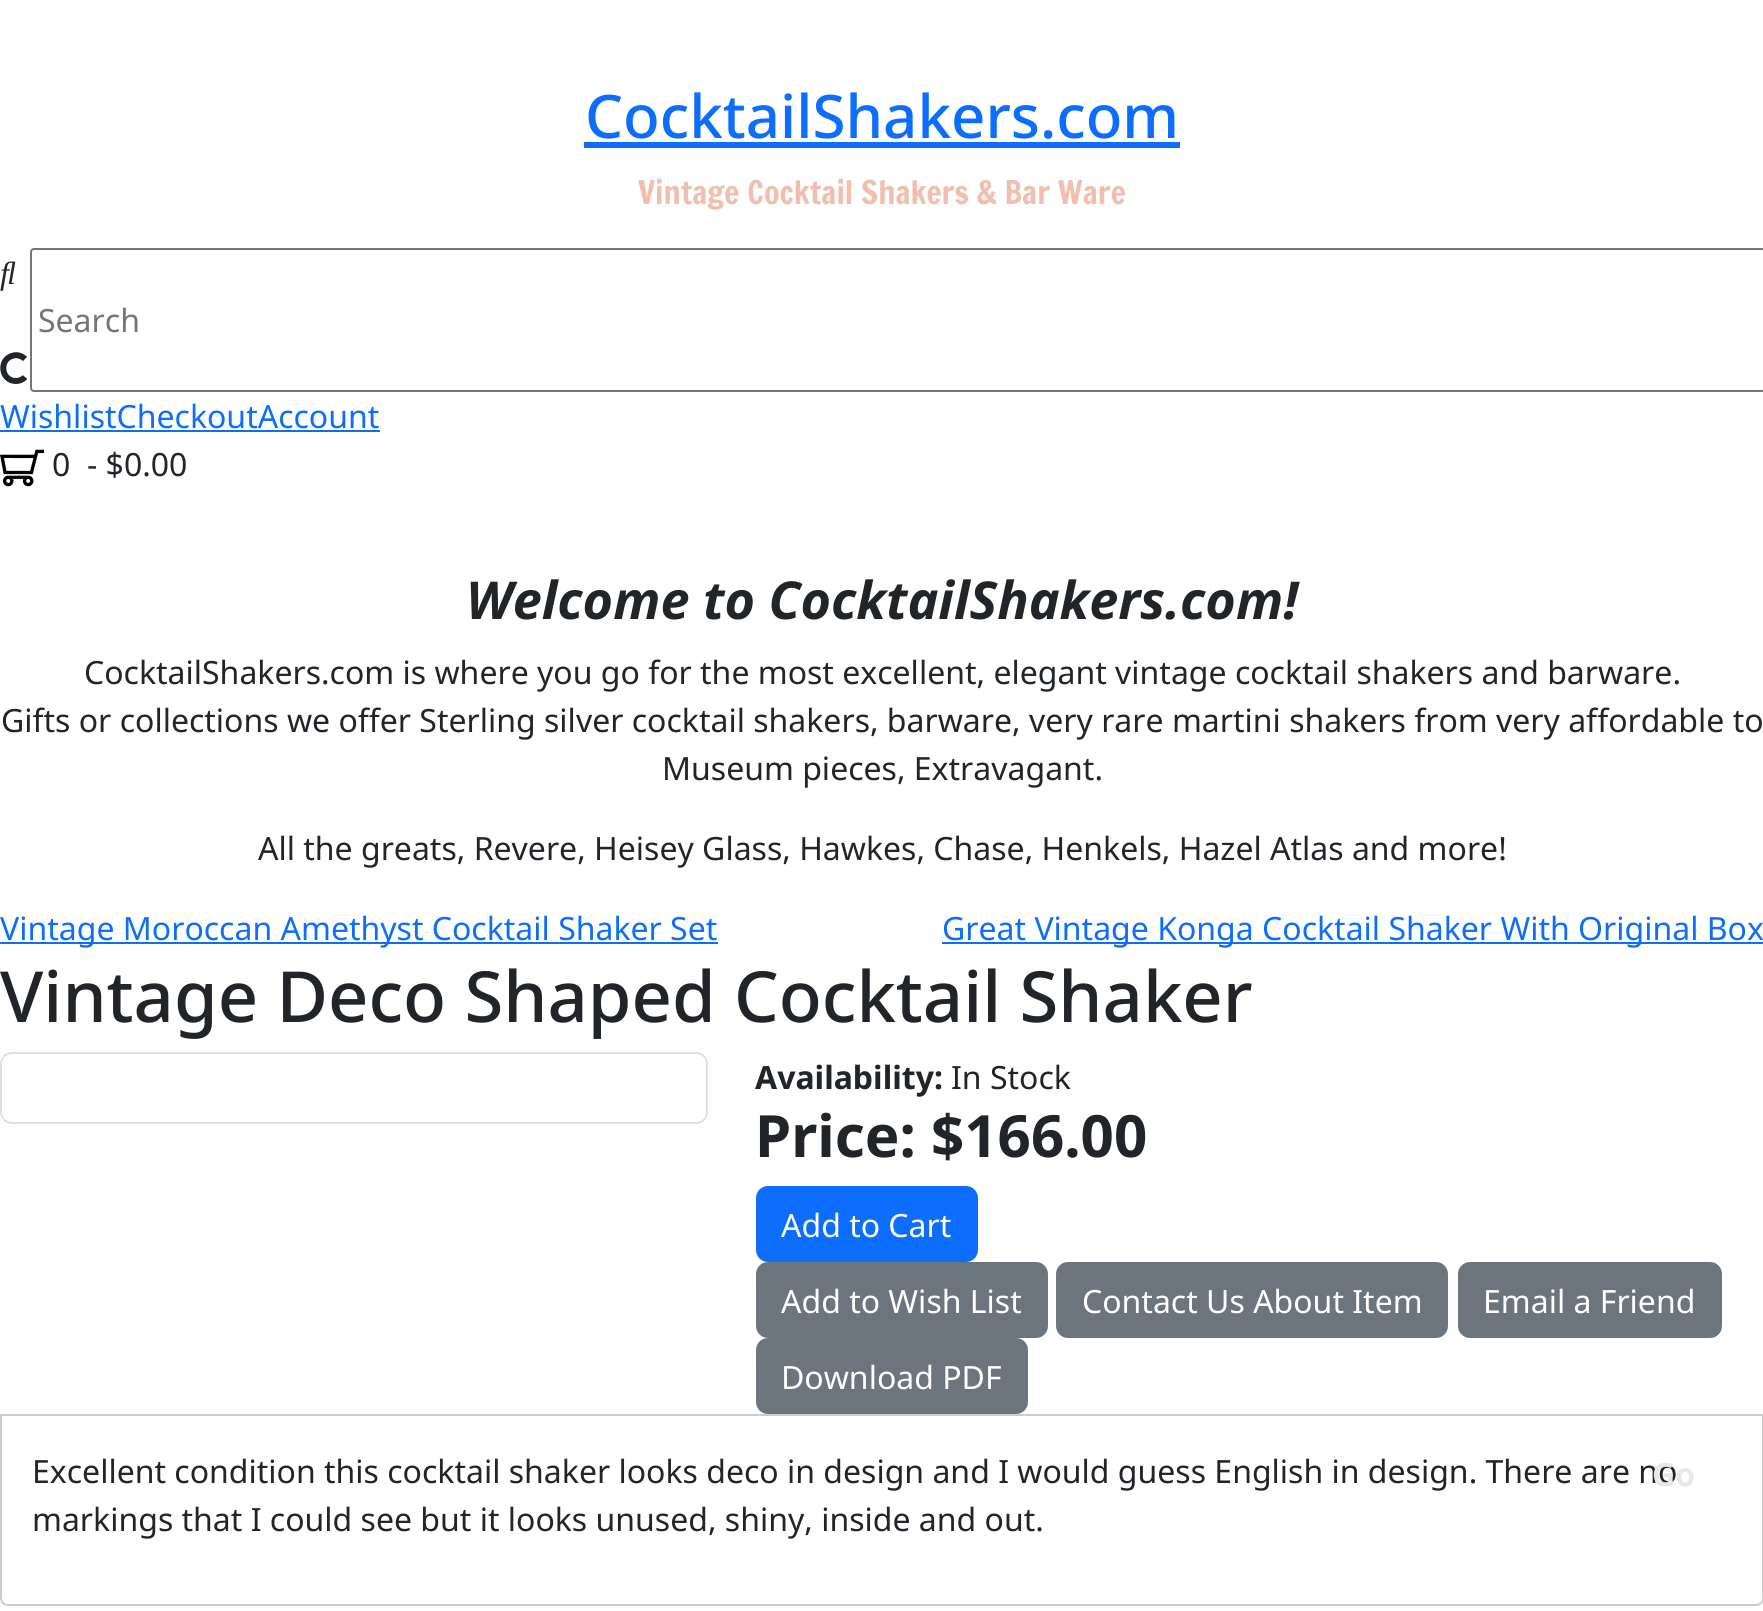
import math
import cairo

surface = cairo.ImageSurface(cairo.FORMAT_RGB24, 1763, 1611)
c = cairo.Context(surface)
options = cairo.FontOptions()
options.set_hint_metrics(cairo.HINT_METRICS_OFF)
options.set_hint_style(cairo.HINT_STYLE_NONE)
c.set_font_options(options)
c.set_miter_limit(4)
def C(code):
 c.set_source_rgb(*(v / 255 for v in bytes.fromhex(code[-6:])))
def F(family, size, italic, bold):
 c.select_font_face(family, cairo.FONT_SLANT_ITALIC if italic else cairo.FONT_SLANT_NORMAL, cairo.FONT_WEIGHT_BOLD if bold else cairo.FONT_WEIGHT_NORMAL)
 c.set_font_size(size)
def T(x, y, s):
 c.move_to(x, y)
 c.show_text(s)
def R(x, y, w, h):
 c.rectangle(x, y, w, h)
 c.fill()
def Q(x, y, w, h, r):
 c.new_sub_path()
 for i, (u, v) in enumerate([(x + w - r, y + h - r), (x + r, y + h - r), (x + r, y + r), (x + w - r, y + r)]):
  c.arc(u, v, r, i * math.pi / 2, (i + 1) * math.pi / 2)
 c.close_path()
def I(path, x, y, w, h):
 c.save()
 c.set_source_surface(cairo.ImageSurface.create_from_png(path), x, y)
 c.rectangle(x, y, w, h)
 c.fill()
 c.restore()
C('ffffff')
c.paint()
F('Noto Sans Medium',60,0,0)
C('0d6efd')
T(585,138,'CocktailShakers.com')
R(584,142,596,6)
F('Francois One',32,0,0)
C('f1bfb1')
T(638,204,'Vintage Cocktail Shakers & Bar Ware')
I('1.png',0,261,16,30)
c.new_path()
c.move_to(25,377)
c.curve_to(23,379.5,19.5,381,16,381)
c.curve_to(.5,381,-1.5,358.5,13.5,355.5)
c.curve_to(17.5,354.5,22,356,25,359)
C('212529')
c.set_line_width(6)
c.stroke()
Q(31,249,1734,142,3)
C('767676')
c.set_line_width(2)
c.stroke()
F('Noto Sans',32,0,0)
C('757575')
T(38,332,'Search')
C('0d6efd')
T(0,428,'WishlistCheckoutAccount')
R(0,430,380,2)
I('2.png',0,449,44,38)
C('212529')
T(52,476,'0')
T(87,476,'- $0.00')
F('Noto Sans',52.2,1,1)
T(466,619,'Welcome to CocktailShakers.com!')
F('Noto Sans',32,0,0)
T(84,684,'CocktailShakers.com is where you go for the most excellent, elegant vintage cocktail shakers and barware.')
T(1,732,'Gifts or collections we offer Sterling silver cocktail shakers, barware, very rare martini shakers from very affordable to')
T(662,780,'Museum pieces, Extravagant.')
T(258,860,'All the greats, Revere, Heisey Glass, Hawkes, Chase, Henkels, Hazel Atlas and more!')
C('0d6efd')
R(0,942,718,2)
T(0,940,'Vintage Moroccan Amethyst Cocktail Shaker Set')
R(942,942,821,2)
T(942,940,'Great Vintage Konga Cocktail Shaker With Original Box')
F('Noto Sans Medium',70.5,0,0)
C('212529')
T(0,1022,'Vintage Deco Shaped Cocktail Shaker')
Q(1,1053,706,70,11)
C('dee2e6')
c.stroke()
F('Noto Sans',32,0,1)
C('212529')
T(755,1089,'Availability:')
F('Noto Sans',32,0,0)
T(951,1089,'In Stock')
F('Noto Sans',58.25,0,1)
T(755,1157,'Price: $166.00')
C('0d6efd')
Q(757,1187,220,74,11)
c.fill_preserve()
c.stroke()
F('Noto Sans',32,0,0)
C('ffffff')
T(781,1237,'Add to Cart')
C('6c757d')
Q(757,1263,290,74,11)
c.fill_preserve()
c.stroke()
C('ffffff')
T(781,1313,'Add to Wish List')
C('6c757d')
Q(1057,1263,390,74,11)
c.fill_preserve()
c.stroke()
C('ffffff')
T(1082,1313,'Contact Us About Item')
C('6c757d')
Q(1459,1263,262,74,11)
c.fill_preserve()
c.stroke()
C('ffffff')
T(1483,1313,'Email a Friend')
C('6c757d')
Q(757,1339,270,74,11)
c.fill_preserve()
c.stroke()
C('ffffff')
T(781,1389,'Download PDF')
c.new_path()
c.move_to(1,1415)
c.line_to(1763,1415)
c.line_to(1763,1598)
c.curve_to(1763,1602,1760,1605,1756,1605)
c.line_to(8,1605)
c.curve_to(4,1605,1,1602,1,1598)
c.close_path()
C('cccccc')
c.stroke()
C('212529')
T(32,1483,'Excellent condition this cocktail shaker looks deco in design and I would guess English in design. There are no')
T(32,1531,'markings that I could see but it looks unused, shiny, inside and out.')
F('Noto Sans',32,0,1)
C('e8e8e9')
T(1652,1486,'Go')
surface.write_to_png('o.png')
